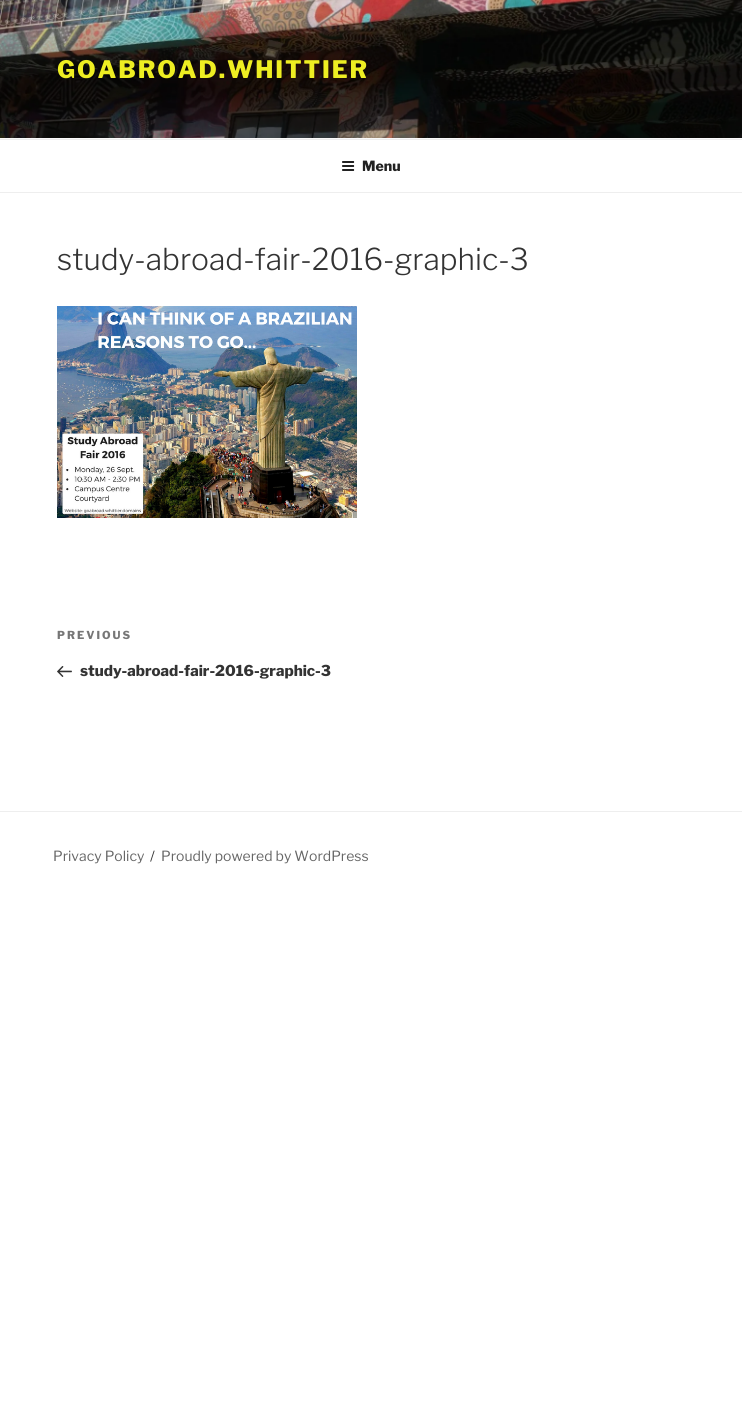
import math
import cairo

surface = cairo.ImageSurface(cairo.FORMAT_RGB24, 742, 1406)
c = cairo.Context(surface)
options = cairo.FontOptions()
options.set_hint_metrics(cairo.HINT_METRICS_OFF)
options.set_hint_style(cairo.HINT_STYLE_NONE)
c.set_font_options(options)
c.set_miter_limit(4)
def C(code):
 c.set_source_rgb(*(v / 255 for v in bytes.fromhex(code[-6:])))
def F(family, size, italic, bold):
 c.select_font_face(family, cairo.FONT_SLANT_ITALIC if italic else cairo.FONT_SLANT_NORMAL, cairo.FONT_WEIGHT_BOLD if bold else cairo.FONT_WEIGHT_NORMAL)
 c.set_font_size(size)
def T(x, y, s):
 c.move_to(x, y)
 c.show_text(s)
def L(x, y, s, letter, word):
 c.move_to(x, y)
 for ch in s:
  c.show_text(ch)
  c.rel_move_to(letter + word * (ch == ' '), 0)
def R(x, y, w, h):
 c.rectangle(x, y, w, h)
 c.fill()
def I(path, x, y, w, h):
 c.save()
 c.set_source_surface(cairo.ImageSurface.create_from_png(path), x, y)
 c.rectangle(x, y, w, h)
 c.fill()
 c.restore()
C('ffffff')
c.paint()
C('fafafa')
R(0,138,742,1)
I('1.png',0,0,742,138)
F('Libre Franklin Thin',24,0,0)
C('eeee22')
L(57,78,'GOABROAD.WHITTIER',1.9,0)
C('eeeeee')
R(0,139,742,1)
R(0,192,742,1)
I('2.png',342,161,13,10)
F('Libre Franklin Thin',14,0,0)
C('222222')
T(362,171,'Menu')
F('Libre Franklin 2 Thin',30,0,0)
C('333333')
T(57,270,'study-abroad-fair-2016-graphic-3')
I('3.png',57,306,300,212)
F('Libre Franklin Thin',11,0,0)
C('767676')
L(57,639,'PREVIOUS',2,0)
I('4.png',57,666,15,11)
F('Libre Franklin Thin',15,0,0)
C('333333')
T(80,676,'study-abroad-fair-2016-graphic-3')
C('eeeeee')
R(0,811,742,1)
F('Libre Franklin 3 Thin',14,0,0)
C('666666')
T(53,861,'Privacy Policy')
C('333333')
T(150,861,'/')
C('666666')
T(161,861,'Proudly powered by WordPress')
surface.write_to_png('o.png')
